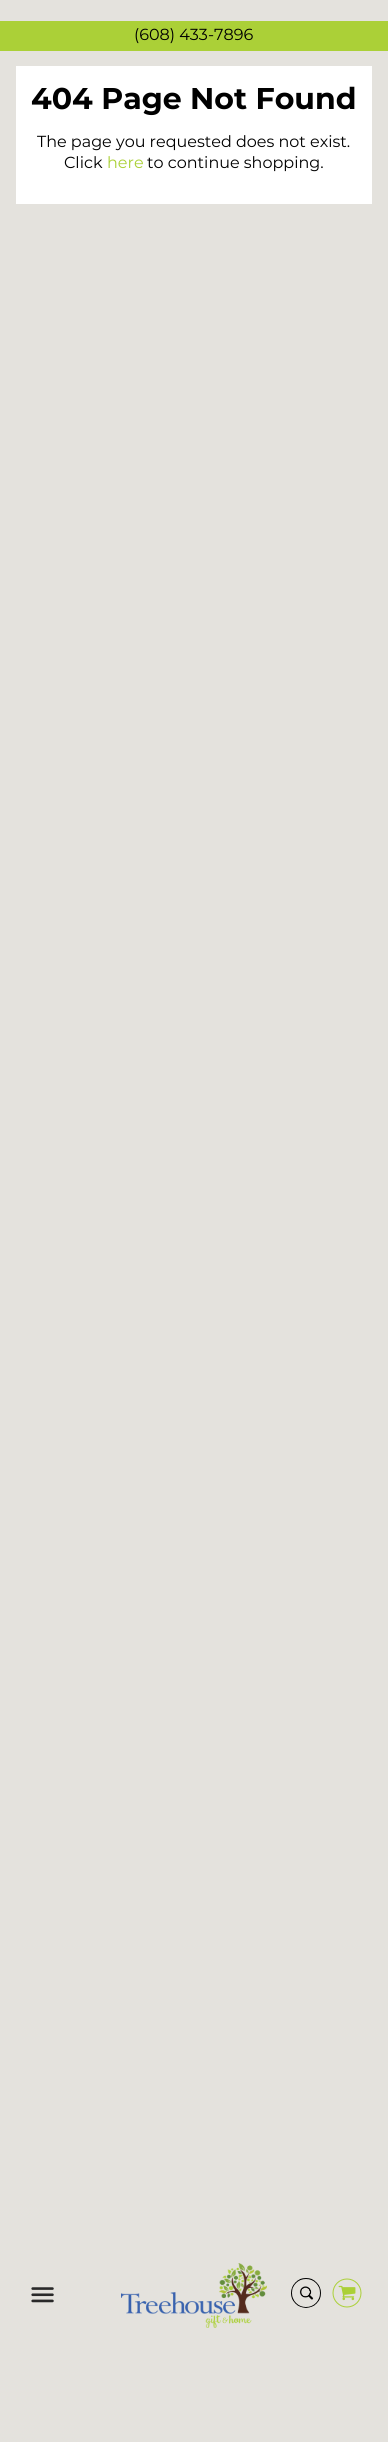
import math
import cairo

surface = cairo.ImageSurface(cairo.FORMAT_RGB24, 388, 2442)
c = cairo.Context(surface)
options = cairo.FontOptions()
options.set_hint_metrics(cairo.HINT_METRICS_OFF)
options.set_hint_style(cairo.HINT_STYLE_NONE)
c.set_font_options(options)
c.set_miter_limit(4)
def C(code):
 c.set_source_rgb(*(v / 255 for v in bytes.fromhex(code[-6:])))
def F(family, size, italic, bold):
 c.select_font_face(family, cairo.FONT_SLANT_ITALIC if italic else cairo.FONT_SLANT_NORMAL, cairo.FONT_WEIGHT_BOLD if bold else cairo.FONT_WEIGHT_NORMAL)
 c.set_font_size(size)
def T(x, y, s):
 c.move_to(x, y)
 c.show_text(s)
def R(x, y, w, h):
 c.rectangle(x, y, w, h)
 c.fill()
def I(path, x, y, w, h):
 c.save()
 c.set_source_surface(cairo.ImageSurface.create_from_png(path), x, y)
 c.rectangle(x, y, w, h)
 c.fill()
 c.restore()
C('e4e2dd')
c.paint()
C('abd037')
R(0,21,388,30)
F('Montserrat',16,0,0)
C('000000')
T(134,40,'(608) 433-7896')
I('1.png',31,2287,23,16)
I('2.png',121,2263,146,65)
I('3.png',291,2278,30,30)
I('4.png',332,2278,30,30)
C('ffffff')
R(16,66,356,138)
F('Montserrat',30,0,1)
C('000000')
T(31,109,'404 Page Not Found')
F('Montserrat',16,0,0)
T(37,147,'The page you requested does not exist.')
T(64,168,'Click')
C('abd037')
T(107,168,'here')
C('000000')
T(147,168,'to continue shopping.')
surface.write_to_png('o.png')
